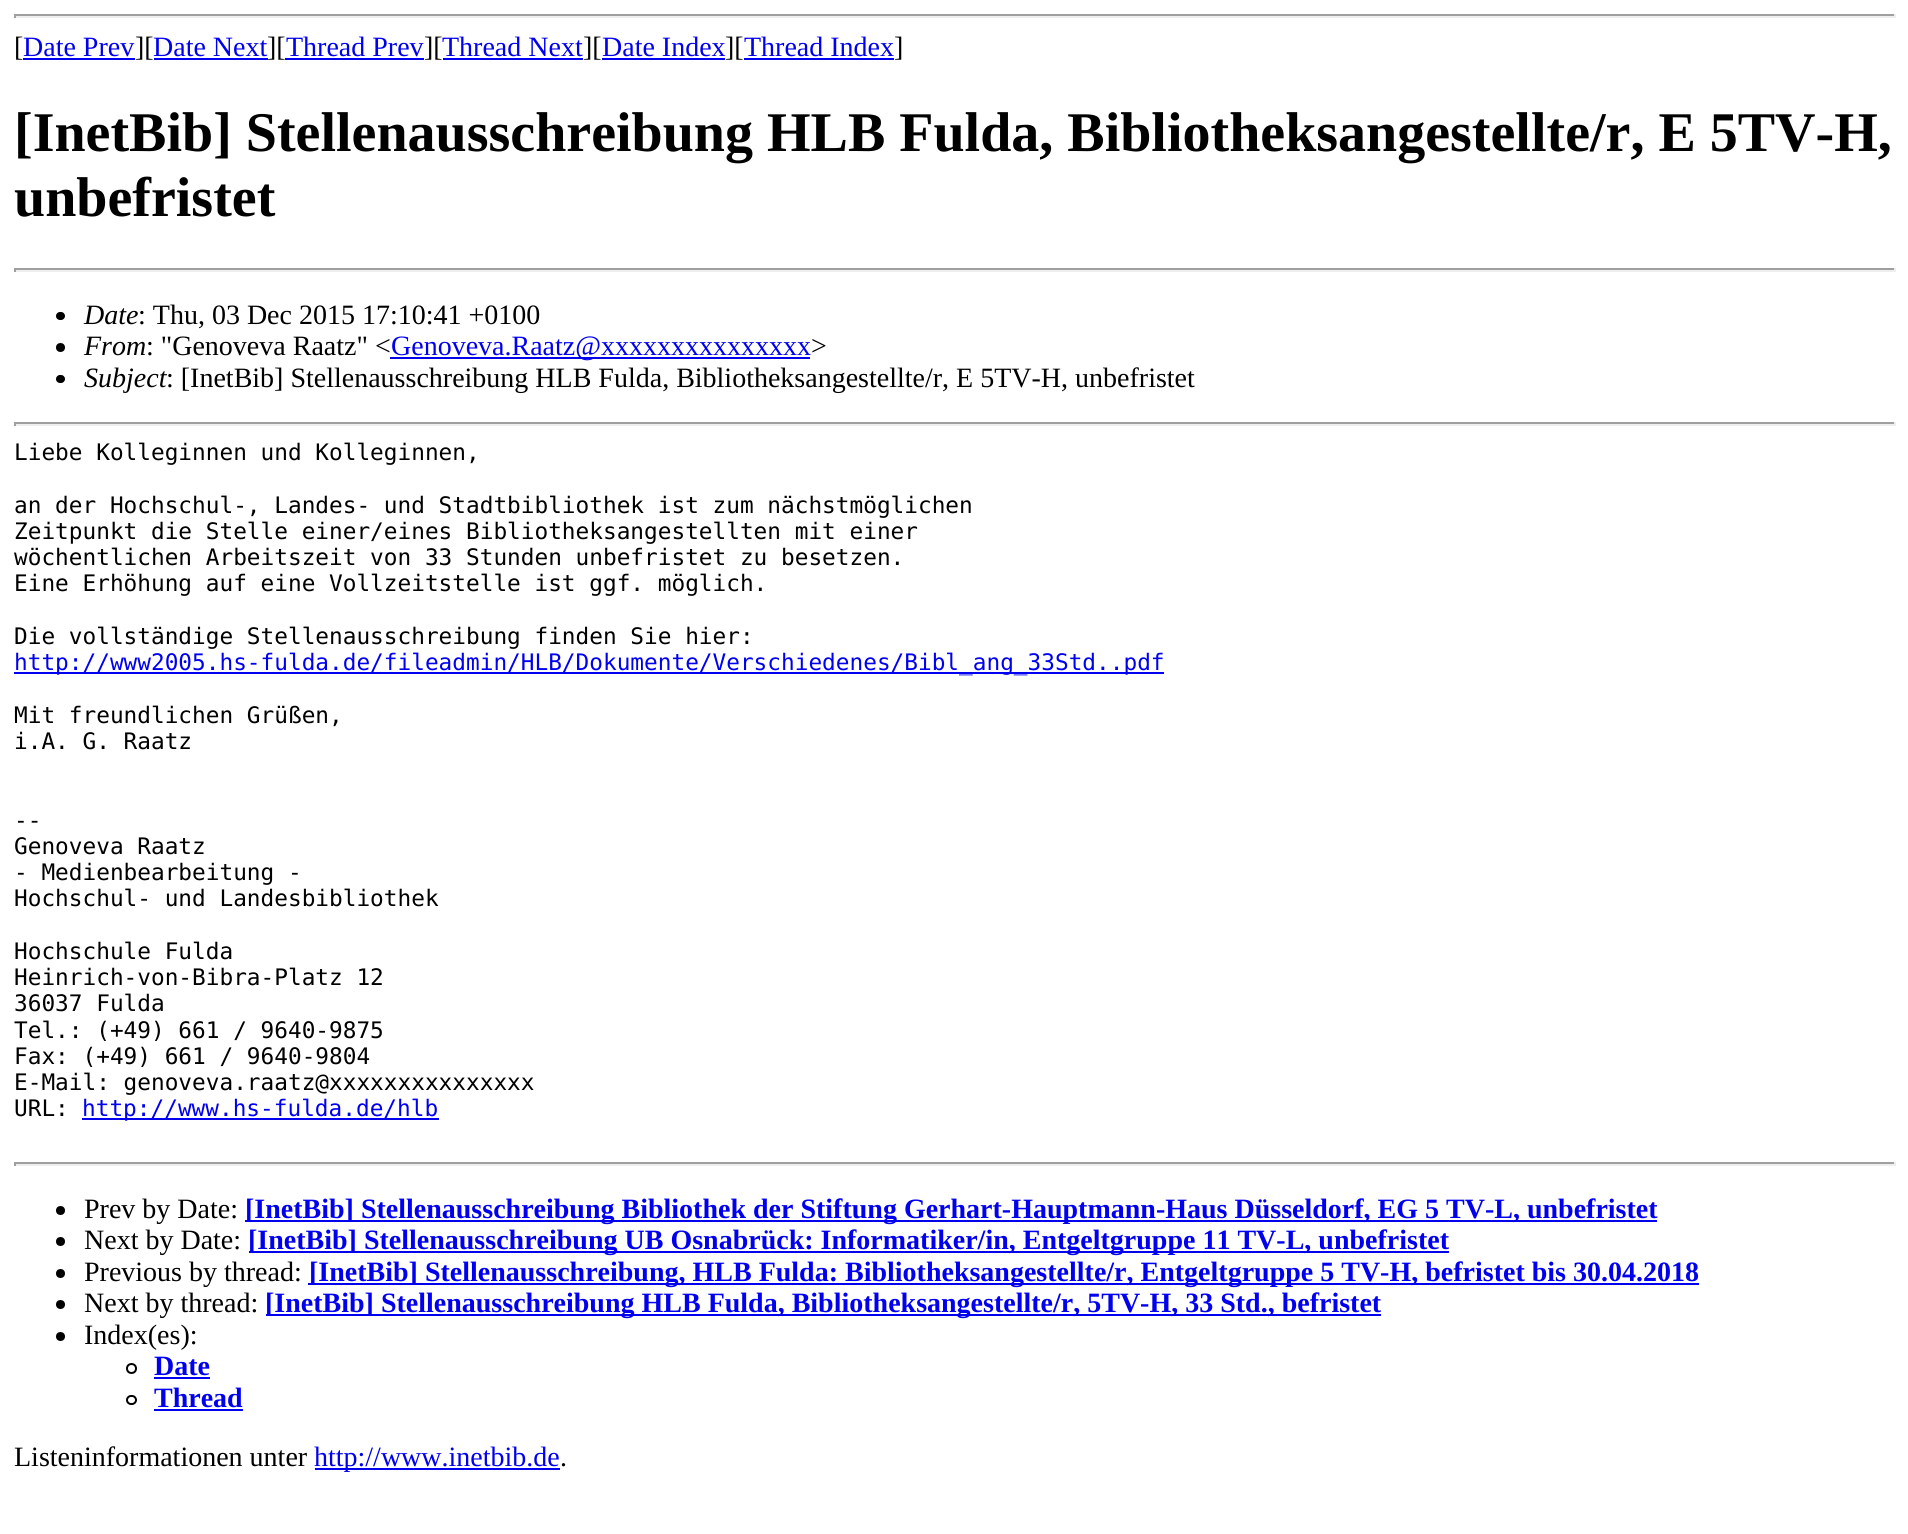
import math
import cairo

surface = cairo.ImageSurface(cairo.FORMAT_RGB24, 1908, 1534)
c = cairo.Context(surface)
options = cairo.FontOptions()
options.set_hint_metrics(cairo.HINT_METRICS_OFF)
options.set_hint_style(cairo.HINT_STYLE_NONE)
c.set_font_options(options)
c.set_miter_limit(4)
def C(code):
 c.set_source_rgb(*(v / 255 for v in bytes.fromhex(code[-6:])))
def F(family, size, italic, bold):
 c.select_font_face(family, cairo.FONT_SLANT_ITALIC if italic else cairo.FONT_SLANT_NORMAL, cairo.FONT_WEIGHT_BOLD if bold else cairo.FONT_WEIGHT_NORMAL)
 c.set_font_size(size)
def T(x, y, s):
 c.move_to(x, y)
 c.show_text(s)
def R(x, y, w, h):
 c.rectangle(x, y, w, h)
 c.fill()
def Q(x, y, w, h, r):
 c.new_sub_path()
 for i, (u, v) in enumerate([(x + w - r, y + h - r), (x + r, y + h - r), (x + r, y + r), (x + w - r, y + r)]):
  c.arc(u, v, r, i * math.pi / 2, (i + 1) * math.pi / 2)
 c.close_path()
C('ffffff')
c.paint()
C('9f9f9f')
R(14,14,1881,2)
C('eeeeee')
R(1894,14,2,4)
R(14,16,1881,2)
C('9f9f9f')
R(14,14,2,4)
F('Liberation Serif',28,0,0)
C('000000')
T(14,56,'[')
C('0000ee')
T(23,56,'Date Prev')
R(23,58,112,2)
C('000000')
T(135,56,'][')
C('0000ee')
T(153,56,'Date Next')
R(154,58,114,2)
C('000000')
T(267,56,'][')
C('0000ee')
T(286,56,'Thread Prev')
R(285,58,139,2)
C('000000')
T(424,56,'][')
C('0000ee')
T(442,56,'Thread Next')
R(443,58,140,2)
C('000000')
T(583,56,'][')
C('0000ee')
T(602,56,'Date Index')
R(602,58,123,2)
C('000000')
T(725,56,'][')
C('0000ee')
T(744,56,'Thread Index')
R(744,58,150,2)
C('000000')
T(894,56,']')
F('Liberation Serif',56,0,1)
T(14,151,'[InetBib] Stellenausschreibung HLB Fulda, Bibliotheksangestellte/r, E 5TV-H,')
T(14,216,'unbefristet')
C('9f9f9f')
R(14,268,1881,2)
C('eeeeee')
R(1894,268,2,4)
R(14,270,1881,2)
C('9f9f9f')
R(14,268,2,4)
C('000000')
Q(56,312,9,8,4)
c.fill()
F('Liberation Serif',28,1,0)
T(84,324,'Date')
F('Liberation Serif',28,0,0)
T(138,324,': Thu, 03 Dec 2015 17:10:41 +0100')
c.new_path()
c.arc(60.5,347.5,4.5,0,2 * math.pi)
c.fill()
F('Liberation Serif',28,1,0)
T(84,355,'From')
F('Liberation Serif',28,0,0)
T(146,355,': "Genoveva Raatz" <')
C('0000ee')
R(390,357,420,2)
T(391,355,'Genoveva.Raatz@xxxxxxxxxxxxxxx')
C('000000')
T(811,355,'>')
Q(56,375,9,8,4)
c.fill()
F('Liberation Serif',28,1,0)
T(84,387,'Subject')
F('Liberation Serif',28,0,0)
T(166,387,': [InetBib] Stellenausschreibung HLB Fulda, Bibliotheksangestellte/r, E 5TV-H, unbefristet')
C('9f9f9f')
R(14,422,1881,2)
C('eeeeee')
R(1894,422,2,4)
R(14,424,1881,2)
C('9f9f9f')
R(14,422,2,4)
F('DejaVu Sans Mono',22.75,0,0)
C('000000')
T(14,460,'Liebe Kolleginnen und Kolleginnen,')
T(14,513,'an der Hochschul-, Landes- und Stadtbibliothek ist zum nächstmöglichen')
T(14,539,'Zeitpunkt die Stelle einer/eines Bibliotheksangestellten mit einer')
T(14,565,'wöchentlichen Arbeitszeit von 33 Stunden unbefristet zu besetzen.')
T(14,591,'Eine Erhöhung auf eine Vollzeitstelle ist ggf. möglich.')
T(14,644,'Die vollständige Stellenausschreibung finden Sie hier:')
C('0000ee')
R(14,672,1150,2)
T(14,670,'http://www2005.hs-fulda.de/fileadmin/HLB/Dokumente/Verschiedenes/Bibl_ang_33Std..pdf')
C('000000')
T(14,723,'Mit freundlichen Grüßen,')
T(14,749,'i.A. G. Raatz')
T(14,828,'--')
T(14,854,'Genoveva Raatz')
T(14,880,'- Medienbearbeitung -')
T(14,906,'Hochschul- und Landesbibliothek')
T(14,959,'Hochschule Fulda')
T(14,985,'Heinrich-von-Bibra-Platz 12')
T(14,1011,'36037 Fulda')
T(14,1038,'Tel.: (+49) 661 / 9640-9875')
T(14,1064,'Fax: (+49) 661 / 9640-9804')
T(14,1090,'E-Mail: genoveva.raatz@xxxxxxxxxxxxxxx')
T(14,1116,'URL:')
C('0000ee')
R(82,1118,357,2)
T(82,1116,'http://www.hs-fulda.de/hlb')
C('9f9f9f')
R(14,1162,1881,2)
C('eeeeee')
R(1894,1162,2,4)
R(14,1164,1881,2)
C('9f9f9f')
R(14,1162,2,4)
C('000000')
c.new_path()
c.arc(60.5,1210.5,4.5,0,2 * math.pi)
c.fill()
F('Liberation Serif',28,0,0)
T(84,1218,'Prev by Date:')
C('0000ee')
R(245,1220,1412,2)
F('Liberation Serif',28,0,1)
T(245,1218,'[InetBib] Stellenausschreibung Bibliothek der Stiftung Gerhart-Hauptmann-Haus Düsseldorf, EG 5 TV-L, unbefristet')
C('000000')
c.new_path()
c.arc(60.5,1241.5,4.5,0,2 * math.pi)
c.fill()
F('Liberation Serif',28,0,0)
T(84,1249,'Next by Date:')
C('0000ee')
R(249,1251,1200,2)
F('Liberation Serif',28,0,1)
T(248,1249,'[InetBib] Stellenausschreibung UB Osnabrück: Informatiker/in, Entgeltgruppe 11 TV-L, unbefristet')
C('000000')
c.new_path()
c.arc(60.5,1273.5,4.5,0,2 * math.pi)
c.fill()
F('Liberation Serif',28,0,0)
T(84,1281,'Previous by thread:')
C('0000ee')
R(308,1283,1391,2)
F('Liberation Serif',28,0,1)
T(309,1281,'[InetBib] Stellenausschreibung, HLB Fulda: Bibliotheksangestellte/r, Entgeltgruppe 5 TV-H, befristet bis 30.04.2018')
C('000000')
c.new_path()
c.arc(60.5,1304.5,4.5,0,2 * math.pi)
c.fill()
F('Liberation Serif',28,0,0)
T(84,1312,'Next by thread:')
C('0000ee')
R(266,1314,1115,2)
F('Liberation Serif',28,0,1)
T(265,1312,'[InetBib] Stellenausschreibung HLB Fulda, Bibliotheksangestellte/r, 5TV-H, 33 Std., befristet')
C('000000')
c.new_path()
c.arc(60.5,1336.5,4.5,0,2 * math.pi)
c.fill()
F('Liberation Serif',28,0,0)
T(84,1344,'Index(es):')
c.new_path()
c.arc(131.5,1368.5,4.5,0,2 * math.pi)
c.stroke()
F('Liberation Serif',28,0,1)
C('0000ee')
T(154,1375,'Date')
R(154,1377,56,2)
Q(127,1396,9,8,4)
C('000000')
c.stroke()
C('0000ee')
T(154,1407,'Thread')
R(154,1409,89,2)
F('Liberation Serif',28,0,0)
C('000000')
T(14,1466,'Listeninformationen unter')
C('0000ee')
R(315,1468,245,2)
T(314,1466,'http://www.inetbib.de')
C('000000')
T(560,1466,'.')
surface.write_to_png('o.png')
